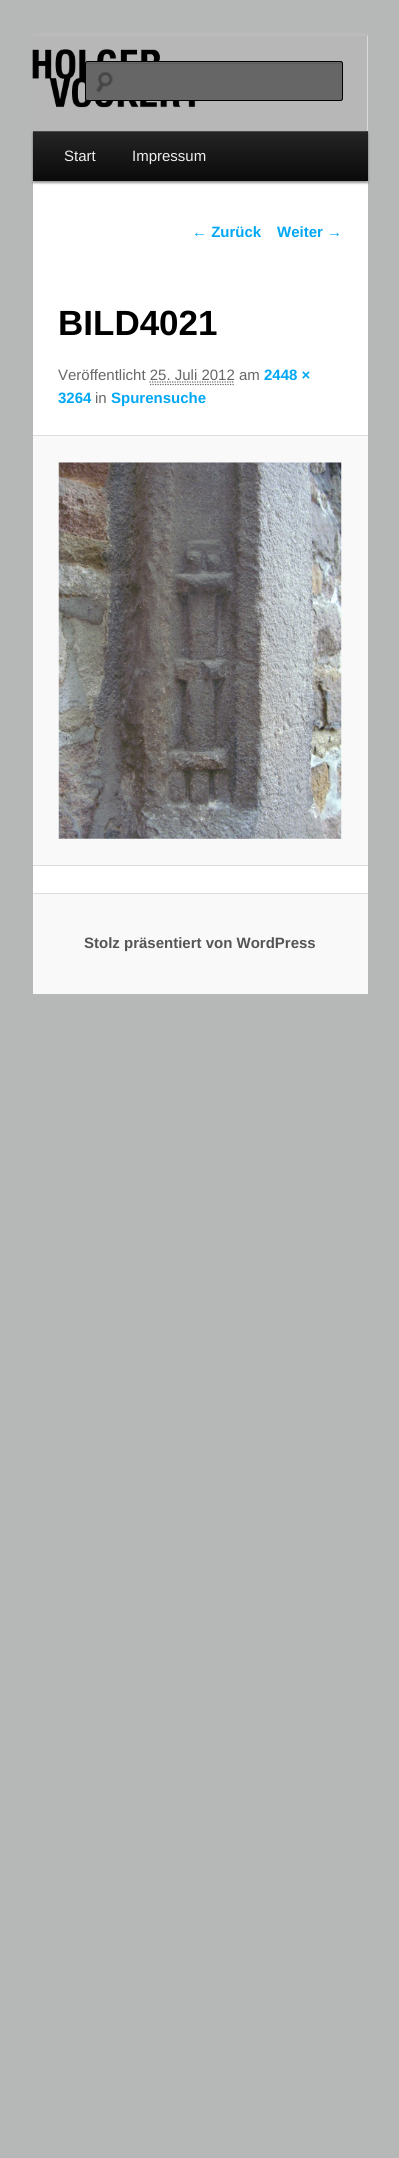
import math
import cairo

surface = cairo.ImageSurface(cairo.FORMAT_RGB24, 399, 2158)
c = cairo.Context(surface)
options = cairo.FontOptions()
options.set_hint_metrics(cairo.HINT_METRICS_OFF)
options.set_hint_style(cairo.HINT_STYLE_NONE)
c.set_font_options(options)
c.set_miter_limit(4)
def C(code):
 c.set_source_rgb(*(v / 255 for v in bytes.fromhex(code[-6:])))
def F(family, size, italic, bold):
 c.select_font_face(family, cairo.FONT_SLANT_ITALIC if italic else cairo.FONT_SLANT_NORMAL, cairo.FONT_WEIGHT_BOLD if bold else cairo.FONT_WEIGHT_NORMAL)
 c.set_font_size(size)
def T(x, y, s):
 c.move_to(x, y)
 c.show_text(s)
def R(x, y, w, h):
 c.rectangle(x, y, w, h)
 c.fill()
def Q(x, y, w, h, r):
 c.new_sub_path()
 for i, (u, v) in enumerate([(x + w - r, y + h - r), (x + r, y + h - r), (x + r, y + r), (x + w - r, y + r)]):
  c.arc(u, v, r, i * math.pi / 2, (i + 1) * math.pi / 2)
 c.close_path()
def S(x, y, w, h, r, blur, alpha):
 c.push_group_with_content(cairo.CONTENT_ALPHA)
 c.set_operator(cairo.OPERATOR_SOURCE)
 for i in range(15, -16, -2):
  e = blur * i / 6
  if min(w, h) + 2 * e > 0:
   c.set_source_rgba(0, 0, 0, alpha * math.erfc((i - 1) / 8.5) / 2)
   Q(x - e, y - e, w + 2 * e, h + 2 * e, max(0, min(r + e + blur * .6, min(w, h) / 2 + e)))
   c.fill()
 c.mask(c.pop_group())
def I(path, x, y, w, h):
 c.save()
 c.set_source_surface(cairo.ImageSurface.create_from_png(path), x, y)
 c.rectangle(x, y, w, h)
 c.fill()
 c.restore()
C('b6b7b7')
c.paint()
C('ffffff')
R(33,36,335,857)
C('bbbbbb')
R(33,33,335,3)
C('000000')
S(33,133,335,50,0,1,.4)
gradient = cairo.LinearGradient(200,131,200,181)
gradient.add_color_stop_rgba(0,0.145,0.145,0.145,1)
gradient.add_color_stop_rgba(1,0.039,0.039,0.039,1)
c.set_source(gradient)
R(33,131,335,50)
I('1.png',32,36,336,96)
C('666666')
Q(85,61,258,40,2.5)
c.fill()
I('2.png',96,72,17,21)
C('5c5c5c')
c.new_path()
c.move_to(88,64)
c.line_to(340,64)
c.curve_to(341,64,341,64,341,65)
c.curve_to(341,64,341,63,340,63)
c.line_to(86,63)
c.line_to(86,65)
c.curve_to(86,64,87,64,88,64)
c.close_path()
c.fill()
Q(85.5,61.5,257,39,2)
C('000000')
c.set_line_width(1)
c.stroke()
F('Liberation Sans',15,0,0)
C('eeeeee')
T(64,161,'Start')
T(132,161,'Impressum')
F('Liberation Sans',15,0,1)
C('00a7f5')
T(192,237,'← Zurück')
T(277,237,'Weiter →')
F('Liberation Sans',35,0,1)
C('000000')
T(58,335,'BILD4021')
F('Liberation Sans',15,0,0)
C('666666')
T(58,380,'Veröffentlicht 25. Juli 2012 am')
F('Liberation Sans',15,0,1)
C('00a7f5')
T(264,380,'2448 ×')
c.new_path()
c.move_to(149.5,382)
c.line_to(234.5,382)
C('666666')
c.set_line_width(1.2)
c.set_dash([1.25,1.25])
c.stroke()
c.new_path()
c.move_to(150,384.5)
c.line_to(235,384.5)
c.stroke()
C('00a7f5')
T(58,403,'3264')
F('Liberation Sans',15,0,0)
C('666666')
T(95,403,'in')
F('Liberation Sans',15,0,1)
C('00a7f5')
T(111,403,'Spurensuche')
C('f9f9f9')
R(33,436,335,429)
C('dddddd')
R(33,435,335,1)
R(33,865,335,1)
I('3.png',58,462,284,377)
C('f9f9f9')
R(33,894,335,100)
C('dddddd')
R(33,893,335,1)
C('555555')
T(84,948,'Stolz präsentiert von WordPress')
surface.write_to_png('o.png')
